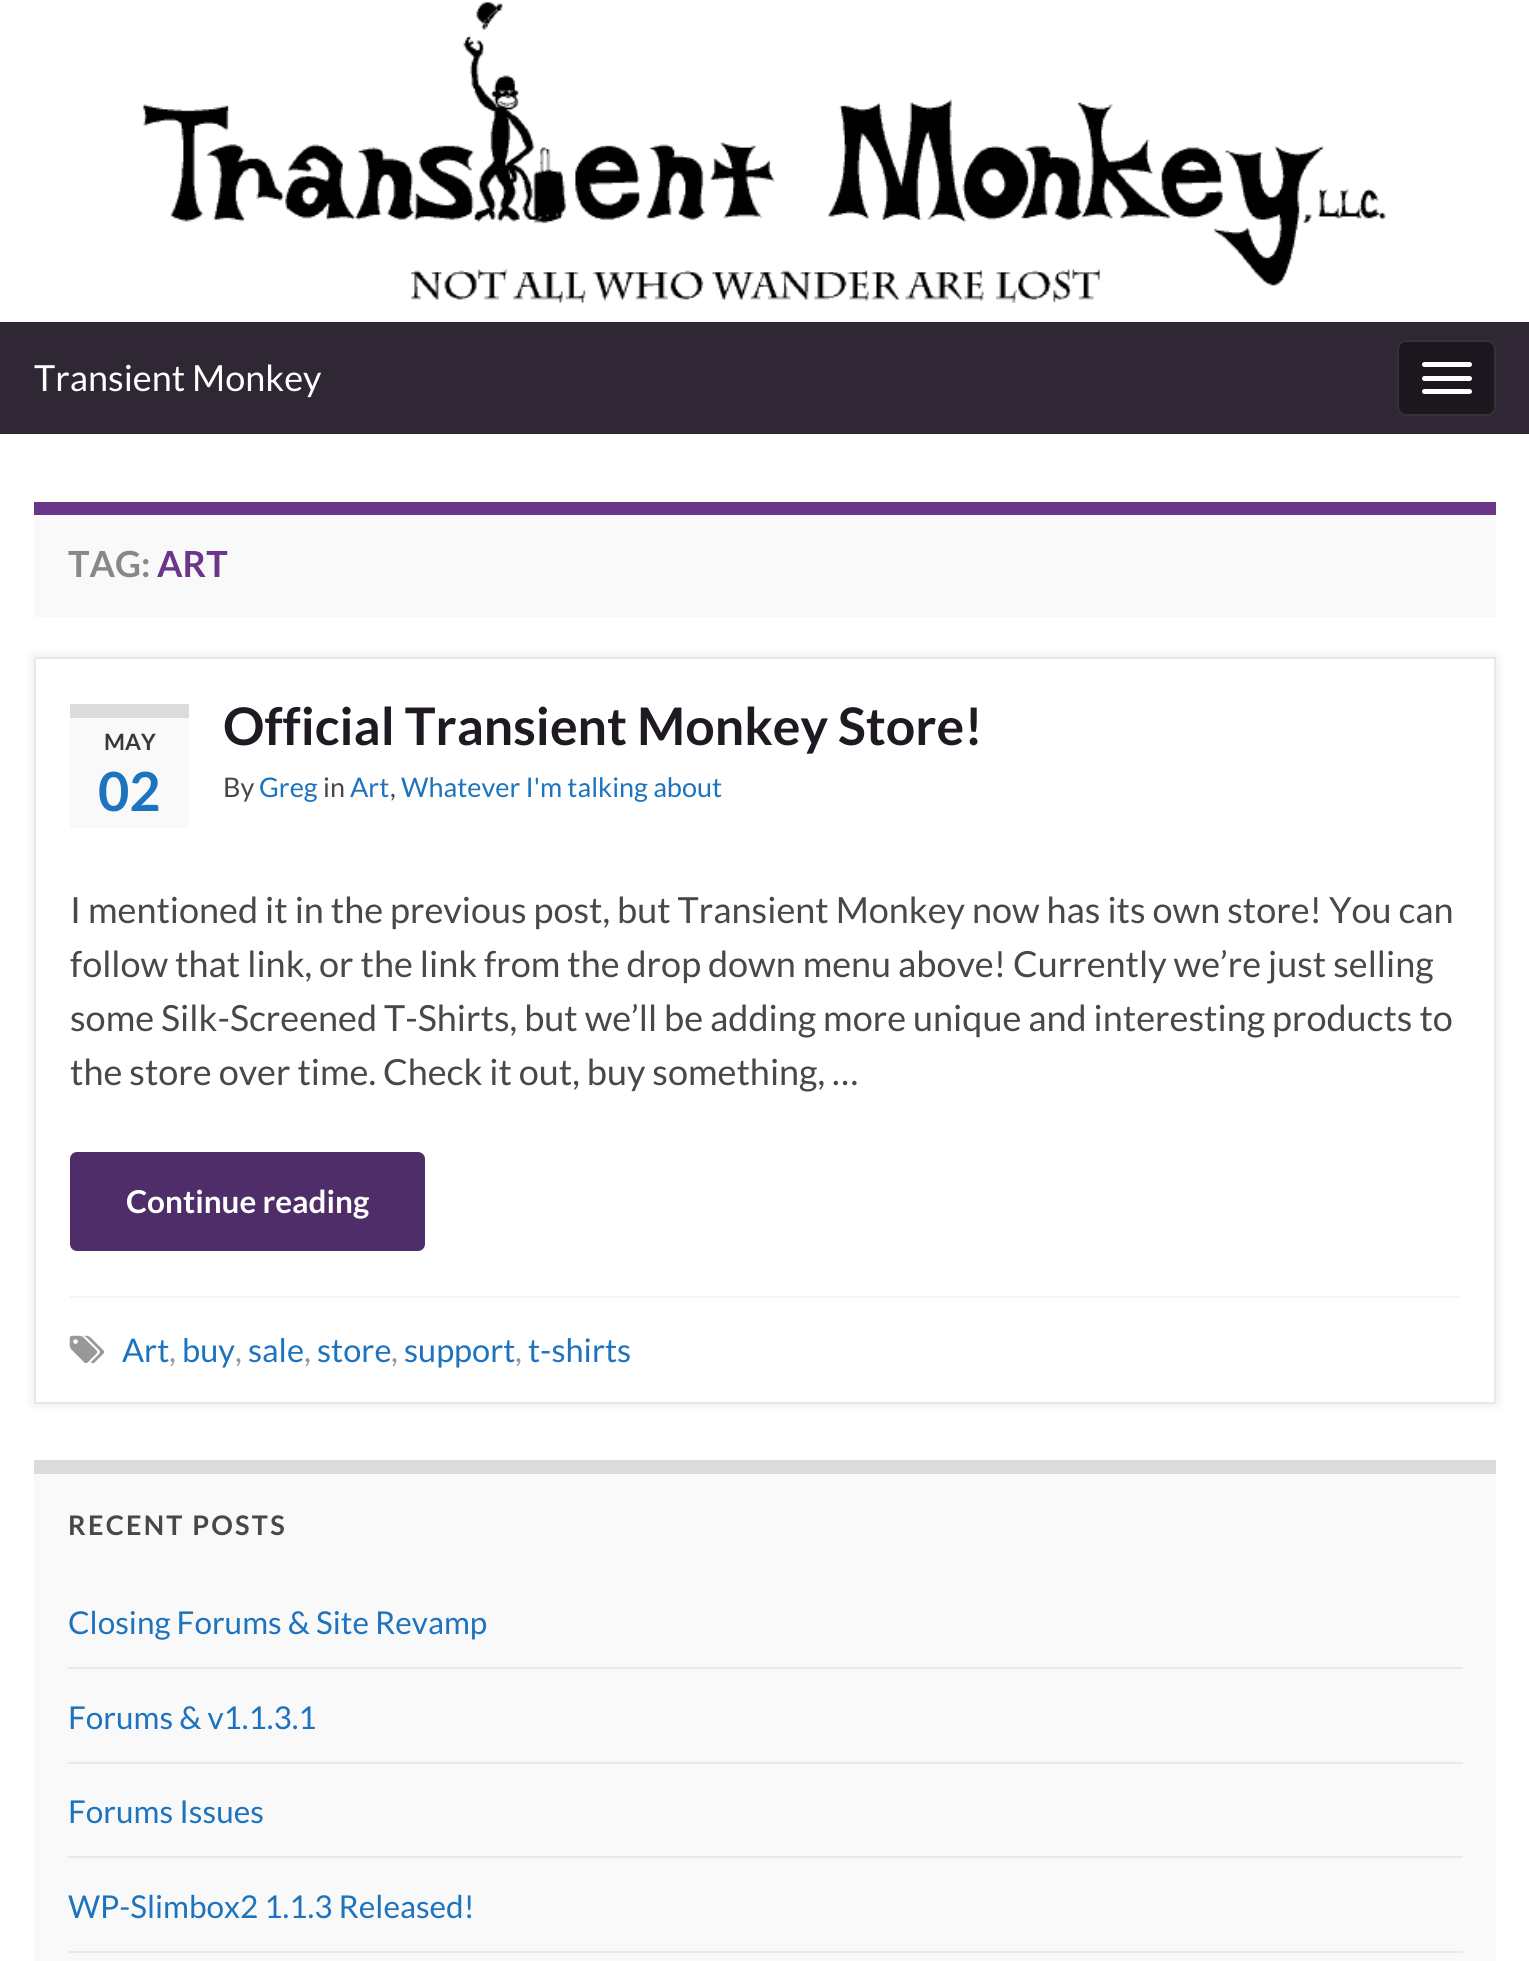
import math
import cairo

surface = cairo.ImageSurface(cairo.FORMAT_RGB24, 1529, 1961)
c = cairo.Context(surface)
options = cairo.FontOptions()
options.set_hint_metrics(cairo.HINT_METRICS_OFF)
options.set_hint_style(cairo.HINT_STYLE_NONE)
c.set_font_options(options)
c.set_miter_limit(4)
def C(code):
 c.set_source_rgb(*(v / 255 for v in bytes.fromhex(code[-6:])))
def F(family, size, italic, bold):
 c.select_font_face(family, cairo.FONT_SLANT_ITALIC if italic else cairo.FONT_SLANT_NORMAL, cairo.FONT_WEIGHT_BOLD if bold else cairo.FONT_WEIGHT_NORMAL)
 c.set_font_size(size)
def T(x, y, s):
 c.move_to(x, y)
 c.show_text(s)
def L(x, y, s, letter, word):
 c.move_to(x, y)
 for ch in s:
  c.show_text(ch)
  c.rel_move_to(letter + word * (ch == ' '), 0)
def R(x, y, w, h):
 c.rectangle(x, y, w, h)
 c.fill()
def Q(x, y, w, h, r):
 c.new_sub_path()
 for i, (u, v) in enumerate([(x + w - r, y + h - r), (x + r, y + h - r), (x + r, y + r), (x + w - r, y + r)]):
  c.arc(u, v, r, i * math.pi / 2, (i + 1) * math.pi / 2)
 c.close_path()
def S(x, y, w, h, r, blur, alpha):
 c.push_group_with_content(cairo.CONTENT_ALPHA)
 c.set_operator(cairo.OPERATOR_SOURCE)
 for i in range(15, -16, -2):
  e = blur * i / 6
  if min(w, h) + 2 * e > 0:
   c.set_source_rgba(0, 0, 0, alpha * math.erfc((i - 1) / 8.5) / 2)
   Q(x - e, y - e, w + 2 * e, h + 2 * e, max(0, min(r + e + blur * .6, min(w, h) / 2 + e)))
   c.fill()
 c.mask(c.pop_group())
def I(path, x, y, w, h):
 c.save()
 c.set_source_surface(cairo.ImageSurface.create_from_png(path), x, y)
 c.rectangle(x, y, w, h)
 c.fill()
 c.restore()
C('ffffff')
c.paint()
I('1.png',143,2,1243,301)
C('2f2733')
R(0,322,1529,112)
F('Lato',36,0,0)
C('ffffff')
T(34,391,'Transient Monkey')
C('1c171f')
Q(1398,341,97,74,8)
c.fill_preserve()
C('333333')
c.stroke()
C('ffffff')
Q(1422,362,50,5,2.5)
c.fill()
Q(1422,376,50,5,2.5)
c.fill()
Q(1422,389,50,5,2.5)
c.fill()
C('f9f9f9')
R(34,515,1462,102)
C('6b3589')
R(34,502,1462,13)
F('Lato',36,0,1)
C('888888')
T(68,577,'TAG:')
C('6b3589')
T(157,577,'ART')
c.save()
c.set_fill_rule(cairo.FILL_RULE_EVEN_ODD)
c.new_path()
c.move_to(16,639)
c.line_to(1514,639)
c.line_to(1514,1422)
c.line_to(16,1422)
c.close_path()
c.move_to(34,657)
c.line_to(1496,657)
c.line_to(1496,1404)
c.line_to(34,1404)
c.close_path()
c.clip()
C('000000')
S(34,657,1462,747,0,5.5,.1)
c.restore()
c.rectangle(35,658,1460,745)
C('e9e8e3')
c.stroke()
C('f9f9f9')
R(70,718,119,110)
C('dbdbdb')
R(70,704,119,14)
F('Lato',22.5,0,1)
C('3b383d')
T(104,750,'MAY')
F('Lato',54,0,1)
C('1e73be')
T(98,811,'02')
F('Lato',51.8,0,1)
C('1f1a22')
T(223,745,'Official Transient Monkey Store!')
F('Lato',27,0,0)
C('4a474b')
T(223,797,'By')
C('1e73be')
T(259,797,'Greg')
C('4a474b')
T(323,797,'in')
C('1e73be')
T(350,797,'Art')
C('4a474b')
T(390,797,',')
C('1e73be')
T(401,797,'Whatever I\'m talking about')
F('Lato',36,0,0)
C('4a474b')
T(70,923,'I mentioned it in the previous post, but Transient Monkey now has its own store! You can')
T(70,977,'follow that link, or the link from the drop down menu above! Currently we’re just selling')
T(70,1031,'some Silk-Screened T-Shirts, but we’ll be adding more unique and interesting products to')
T(70,1085,'the store over time. Check it out, buy something, …')
C('4f2d69')
Q(70,1152,355,99,7)
c.fill()
F('Lato',31.5,0,1)
C('ffffff')
T(126,1213,'Continue reading')
C('f5f5f5')
R(70,1296,1390,2)
I('2.png',69,1335,35,29)
F('Lato',32.5,0,0)
C('1e73be')
T(122,1362,'Art')
C('989898')
T(169,1362,',')
C('1e73be')
T(182,1362,'buy')
C('989898')
T(235,1362,',')
C('1e73be')
T(248,1362,'sale')
C('989898')
T(304,1362,',')
C('1e73be')
T(317,1362,'store')
C('989898')
T(391,1362,',')
C('1e73be')
T(404,1362,'support')
C('989898')
T(515,1362,',')
C('1e73be')
T(528,1362,'t-shirts')
C('f9f9f9')
R(34,1474,1462,487)
C('dbdbdb')
R(34,1460,1462,14)
F('Lato',27,0,1)
C('4a474b')
L(68,1535,'RECENT POSTS',2.25,0)
C('e9e9e9')
R(68,1667,1395,2)
F('Lato',31.5,0,0)
C('1e73be')
T(68,1634,'Closing Forums & Site Revamp')
C('e9e9e9')
R(68,1762,1395,2)
C('1e73be')
T(68,1729,'Forums & v1.1.3.1')
C('e9e9e9')
R(68,1856,1395,2)
C('1e73be')
T(68,1823,'Forums Issues')
C('e9e9e9')
R(68,1951,1395,2)
C('1e73be')
T(68,1918,'WP-Slimbox2 1.1.3 Released!')
surface.write_to_png('o.png')
